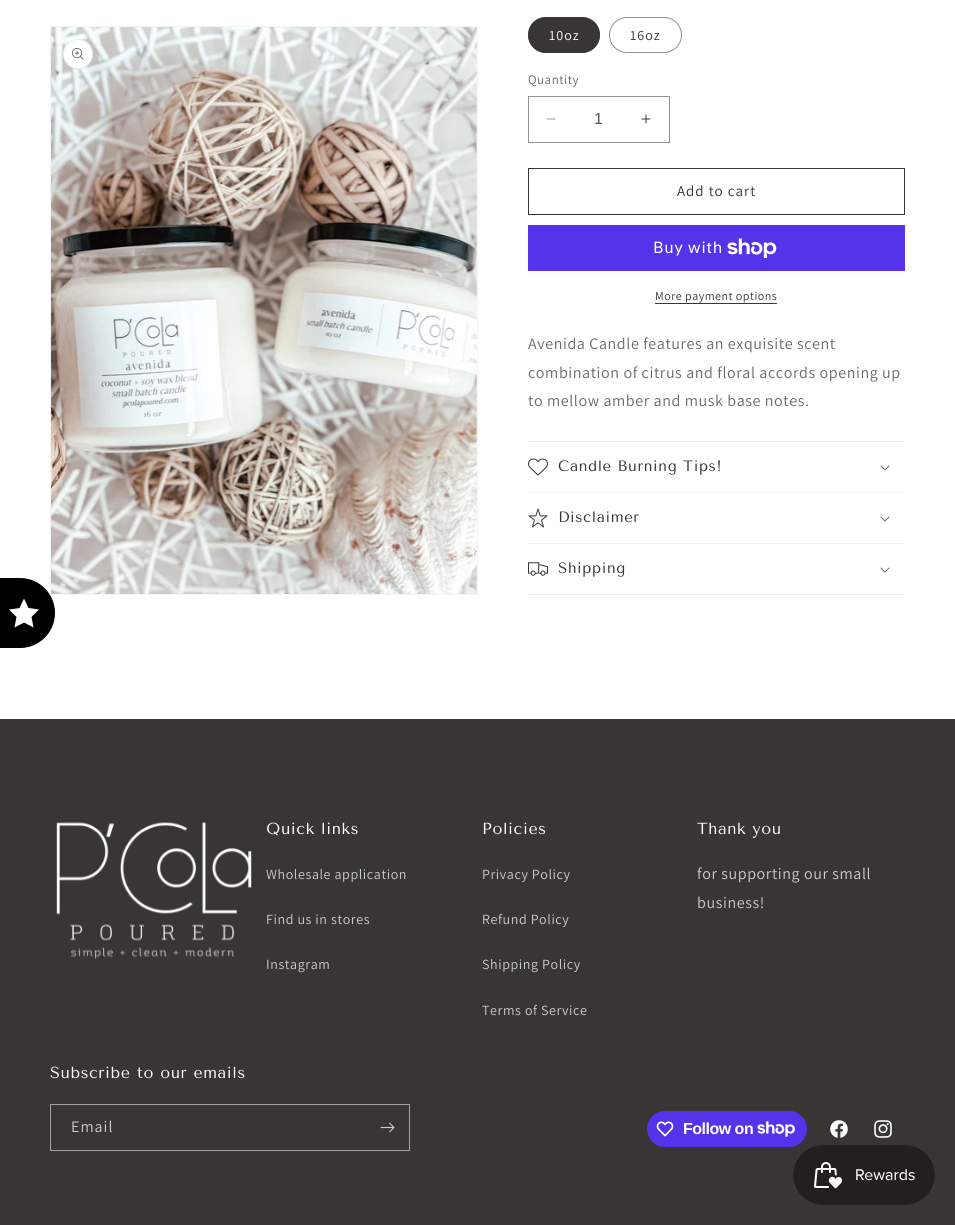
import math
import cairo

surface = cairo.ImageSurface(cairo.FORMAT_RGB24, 955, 1225)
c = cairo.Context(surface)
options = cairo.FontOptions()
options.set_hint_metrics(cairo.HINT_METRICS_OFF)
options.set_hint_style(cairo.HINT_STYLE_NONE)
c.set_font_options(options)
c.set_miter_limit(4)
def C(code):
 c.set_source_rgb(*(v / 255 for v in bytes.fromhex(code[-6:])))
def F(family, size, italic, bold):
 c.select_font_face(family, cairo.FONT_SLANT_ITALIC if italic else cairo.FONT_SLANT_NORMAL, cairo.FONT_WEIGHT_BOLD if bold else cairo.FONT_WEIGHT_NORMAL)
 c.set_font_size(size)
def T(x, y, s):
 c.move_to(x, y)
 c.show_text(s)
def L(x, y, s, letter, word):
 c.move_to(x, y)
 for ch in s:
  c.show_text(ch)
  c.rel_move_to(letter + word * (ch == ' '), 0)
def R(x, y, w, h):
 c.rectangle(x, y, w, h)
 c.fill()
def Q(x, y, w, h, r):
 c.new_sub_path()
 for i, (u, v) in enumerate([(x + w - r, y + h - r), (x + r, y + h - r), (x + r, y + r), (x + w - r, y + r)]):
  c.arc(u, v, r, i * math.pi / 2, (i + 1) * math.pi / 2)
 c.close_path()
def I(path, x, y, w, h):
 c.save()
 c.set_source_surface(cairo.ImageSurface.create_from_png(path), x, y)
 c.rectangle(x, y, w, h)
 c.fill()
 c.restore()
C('ffffff')
c.paint()
c.rectangle(50.5,26.5,427,568)
C('f5f5f5')
c.set_line_width(1)
c.stroke()
I('1.png',51,27,426,567)
C('ffffff')
c.arc(78,54,15,0,2 * math.pi)
c.fill()
c.arc(78,54,14.5,0,2 * math.pi)
c.set_source_rgba(0.22,0.208,0.208,0.1)
c.stroke()
I('2.png',72,48,12,12)
C('383535')
Q(528,17,72,36,18)
c.fill()
Q(528.5,17.5,71,35,17.5)
c.set_source_rgba(0.22,0.208,0.208,0.55)
c.stroke()
F('Assistant',14,0,0)
C('ffffff')
L(549,40,'10oz',1,0)
Q(609.5,17.5,72,35,17.5)
C('929090')
c.stroke()
C('383535')
L(630,40,'16oz',1,0)
F('Assistant',13,0,0)
C('6a6868')
L(528,84,'Quantity',.5,0)
I('3.png',546,118,10,2)
I('4.png',641,114,10,10)
c.rectangle(528.5,96.5,141,46)
C('929090')
c.stroke()
F('Liberation Sans',16,0,0)
C('565353')
T(594,124,'1')
c.rectangle(528.5,168.5,376,46)
C('383535')
c.stroke()
F('Assistant',15,0,0)
L(677,196,'Add to cart',1,0)
C('5433eb')
R(528,225,377,46)
F('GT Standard',16,0,0)
C('ffffff')
L(653,253,'Buy with',.6,0)
I('5.png',727,238,50,20)
F('Assistant',12,0,0)
C('383535')
L(655,300,'More payment options',.5,0)
R(655,303,122,1)
F('Assistant',16,0,0)
C('6a6868')
L(528,349,'Avenida Candle features an exquisite scent',.6,0)
L(528,378,'combination of citrus and floral accords opening up',.6,0)
L(528,406,'to mellow amber and musk base notes.',.6,0)
C('efefef')
R(528,441,377,1)
R(528,492,377,1)
I('6.png',528,458,20,18)
F('Tenor Sans',15,0,0)
C('383535')
L(558,471,'Candle Burning Tips!',.6,0)
I('7.png',880,465,10,6)
C('efefef')
R(528,543,377,1)
I('8.png',528,508,20,20)
C('383535')
L(558,522,'Disclaimer',.6,0)
I('7.png',880,516,10,6)
C('efefef')
R(528,594,377,1)
I('9.png',528,562,20,14)
C('383535')
L(558,573,'Shipping',.6,0)
I('7.png',880,567,10,6)
C('000000')
c.new_path()
c.move_to(-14.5,578.5)
c.line_to(20,578.5)
c.curve_to(39,578.5,54.5,594,54.5,613)
c.curve_to(54.5,632,39,647.5,20,647.5)
c.line_to(-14.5,647.5)
c.close_path()
c.fill_preserve()
c.stroke()
C('ffffff')
c.new_path()
c.move_to(24,598.5)
c.line_to(28.5,608)
c.line_to(39,609.5)
c.line_to(31.5,617)
c.line_to(33.5,627.5)
c.line_to(24,622.5)
c.line_to(14.5,627.5)
c.line_to(16.5,617)
c.line_to(9,609.5)
c.line_to(19.5,608)
c.close_path()
c.fill()
C('383535')
R(0,719,955,506)
I('10.png',56,822,196,137)
F('Tenor Sans',16,0,0)
C('ffffff')
L(266,834,'Quick links',.6,0)
F('Assistant',14,0,0)
C('cdcdcd')
L(266,879,'Wholesale application',.6,0)
L(266,924,'Find us in stores',.6,0)
L(266,969,'Instagram',.6,0)
F('Tenor Sans',16,0,0)
C('ffffff')
L(482,834,'Policies',.6,0)
F('Assistant',14,0,0)
C('cdcdcd')
L(482,879,'Privacy Policy',.6,0)
L(482,924,'Refund Policy',.6,0)
L(482,969,'Shipping Policy',.6,0)
L(482,1015,'Terms of Service',.6,0)
F('Tenor Sans',16,0,0)
C('ffffff')
L(697,834,'Thank you',.6,0)
F('Assistant',16,0,0)
C('cdcdcd')
L(697,879,'for supporting our small',.6,0)
L(697,908,'business!',.6,0)
F('Tenor Sans',16,0,0)
C('ffffff')
L(50,1078,'Subscribe to our emails',.6,0)
c.rectangle(50.5,1104.5,359,46)
C('a5a4a4')
c.stroke()
F('Assistant',16,0,0)
C('cdcdcd')
L(71,1132,'Email',1,0)
I('11.png',380,1122,15,11)
C('5433eb')
Q(647,1111,160,36,18)
c.fill()
I('12.png',656,1121,18,16)
F('Liberation Sans',16,0,1)
C('ffffff')
L(683,1134,'Follow on',-.5,0)
I('13.png',757,1121,38,16)
I('14.png',830,1120,18,18)
I('15.png',874,1120,18,18)
I('16.png',793,1145,142,60)
surface.write_to_png('o.png')
